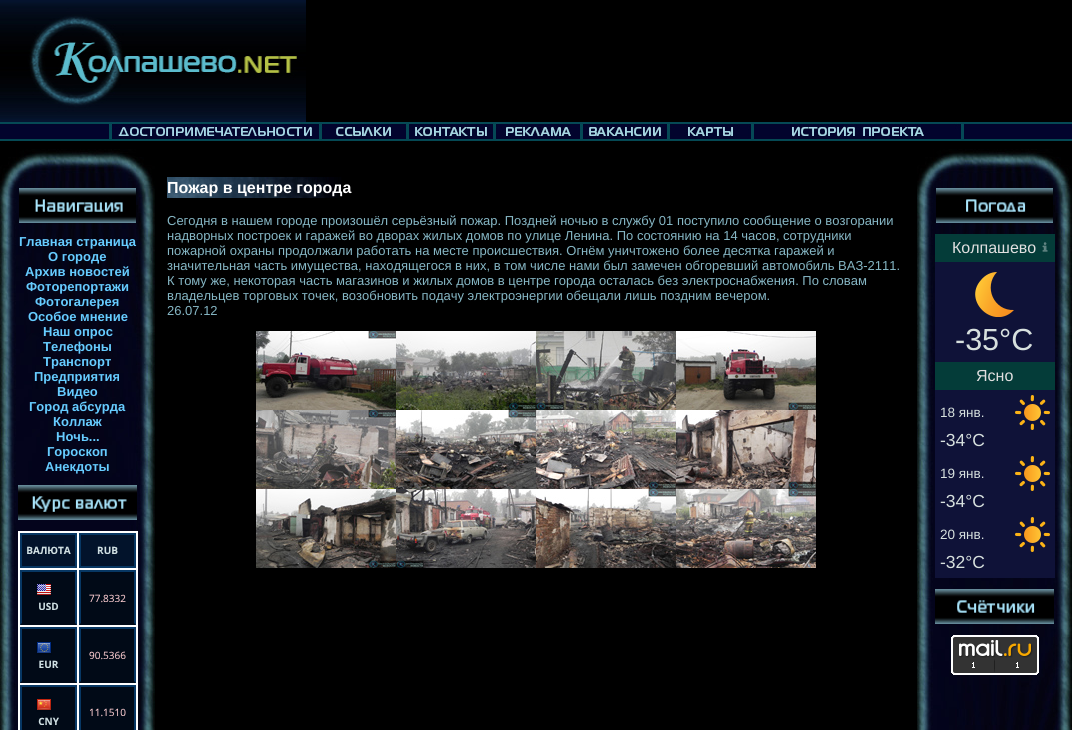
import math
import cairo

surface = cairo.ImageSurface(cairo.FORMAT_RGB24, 1072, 730)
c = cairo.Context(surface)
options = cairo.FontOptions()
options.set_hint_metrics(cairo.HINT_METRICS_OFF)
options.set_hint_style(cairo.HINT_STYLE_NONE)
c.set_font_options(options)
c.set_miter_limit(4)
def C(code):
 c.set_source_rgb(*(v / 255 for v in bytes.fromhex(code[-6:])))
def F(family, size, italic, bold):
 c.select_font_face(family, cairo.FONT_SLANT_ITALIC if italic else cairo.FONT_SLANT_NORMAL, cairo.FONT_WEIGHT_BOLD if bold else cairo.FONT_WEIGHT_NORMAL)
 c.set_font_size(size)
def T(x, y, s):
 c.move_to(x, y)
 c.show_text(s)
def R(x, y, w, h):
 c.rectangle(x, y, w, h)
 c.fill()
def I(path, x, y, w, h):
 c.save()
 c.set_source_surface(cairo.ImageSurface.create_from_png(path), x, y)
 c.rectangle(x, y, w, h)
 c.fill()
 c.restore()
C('000000')
c.paint()
I('1.png',0,0,306,122)
I('2.png',0,122,1072,19)
I('3.png',109,123,203,16)
I('4.png',319,122,72,17)
I('5.png',406,122,81,17)
I('6.png',493,123,78,16)
I('7.png',580,123,81,16)
I('8.png',667,124,87,15)
I('9.png',792,123,172,16)
I('10.png',0,149,155,581)
I('11.png',19,188,117,35)
F('Liberation Sans',13,0,1)
C('66ccff')
T(19,246,'Главная страница')
T(48,261,'О городе')
T(25,276,'Архив новостей')
T(26,291,'Фоторепортажи')
T(35,306,'Фотогалерея')
T(28,321,'Особое мнение')
T(43,336,'Наш опрос')
T(43,351,'Телефоны')
T(43,366,'Транспорт')
T(34,381,'Предприятия')
T(57,396,'Видео')
T(29,411,'Город абсурда')
T(53,426,'Коллаж')
T(56,441,'Ночь...')
T(47,456,'Гороскоп')
T(45,471,'Анекдоты')
I('12.png',18,485,119,35)
I('13.png',18,531,120,199)
I('14.png',167,177,175,21)
F('Liberation Sans',16,0,1)
C('ffffff')
T(167,193,'Пожар в центре города')
F('Liberation Sans',13,0,0)
C('86b7c5')
T(167,225,'Сегодня в нашем городе произошёл серьёзный пожар. Поздней ночью в службу 01 поступило сообщение о возгорании')
T(167,240,'надворных построек и гаражей во дворах жилых домов по улице Ленина. По состоянию на 14 часов, сотрудники')
T(167,255,'пожарной охраны продолжали работать на месте происшествия. Огнём уничтожено более десятка гаражей и')
T(167,270,'значительная часть имущества, находящегося в них, в том числе нами был замечен обгоревший автомобиль ВАЗ-2111.')
T(167,285,'К тому же, некоторая часть магазинов и жилых домов в центре города осталась без электроснабжения. По словам')
T(167,300,'владельцев торговых точек, возобновить подачу электроэнергии обещали лишь поздним вечером.')
T(167,315,'26.07.12')
I('15.png',256,331,140,79)
I('16.png',396,331,140,79)
I('17.png',536,331,140,79)
I('18.png',676,331,140,79)
I('19.png',256,410,140,79)
I('20.png',396,410,140,79)
I('21.png',536,410,140,79)
I('22.png',676,410,140,79)
I('23.png',256,489,140,79)
I('24.png',396,489,140,79)
I('25.png',536,489,140,79)
I('26.png',676,489,140,79)
I('10.png',917,149,155,581)
I('27.png',936,188,117,35)
C('0f1238')
R(935,262,120,316)
C('043c39')
R(935,234,120,28)
F('Liberation Sans',16,0,0)
C('e1e0e0')
T(952,253,'Колпашево')
I('28.png',1042,242,6,10)
c.save()
c.rectangle(972,272,45,45)
c.clip()
gradient = cairo.LinearGradient(1018,302,978,287)
gradient.add_color_stop_rgba(0,0.969,0.557,0.118,1)
gradient.add_color_stop_rgba(.25,0.973,0.58,0.129,1)
gradient.add_color_stop_rgba(.58,0.98,0.647,0.157,1)
gradient.add_color_stop_rgba(.95,0.996,0.757,0.2,1)
gradient.add_color_stop_rgba(1,1,0.773,0.208,1)
c.set_source(gradient)
c.new_path()
c.move_to(1014,310)
c.curve_to(994,331,962,301,981,280)
c.curve_to(985,275,991,272,997,272)
c.curve_to(983,287,994,311,1014,310)
c.close_path()
c.fill()
c.restore()
F('Liberation Sans',30.5,0,0)
C('d7e0de')
T(955,350,'-35°C')
C('043c39')
R(935,362,120,28)
F('Liberation Sans',16,0,0)
C('e1e0e0')
T(976,381,'Ясно')
F('Liberation Sans',13.5,0,0)
C('d7e0de')
T(940,417,'18 янв.')
I('29.png',1015,395,35,35)
F('Liberation Sans',17.5,0,0)
T(940,446,'-34°C')
F('Liberation Sans',13.5,0,0)
T(940,478,'19 янв.')
I('29.png',1015,456,35,35)
F('Liberation Sans',17.5,0,0)
T(940,507,'-34°C')
F('Liberation Sans',13.5,0,0)
T(940,539,'20 янв.')
I('29.png',1015,517,35,35)
F('Liberation Sans',17.5,0,0)
T(940,568,'-32°C')
I('30.png',935,589,119,35)
I('31.png',951,635,88,40)
surface.write_to_png('o.png')
